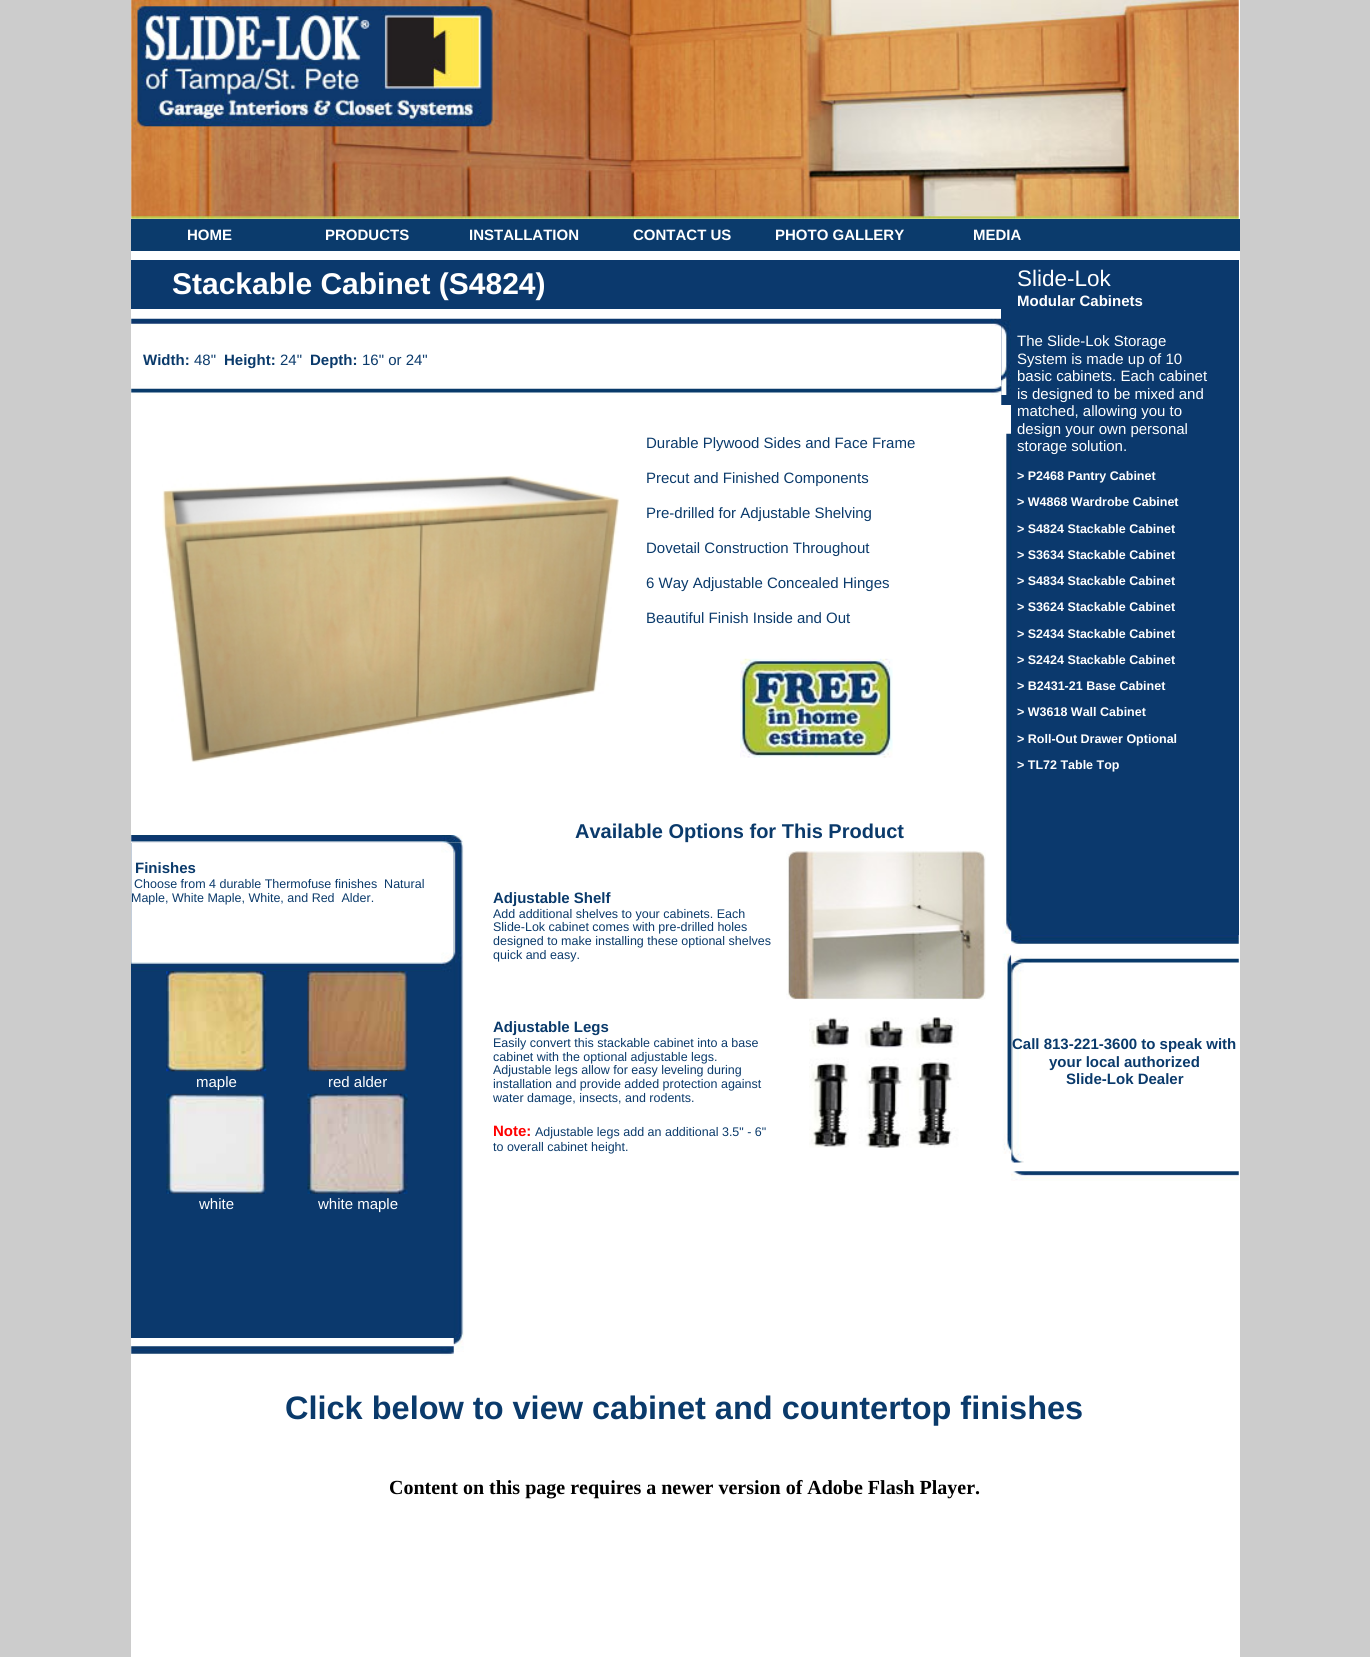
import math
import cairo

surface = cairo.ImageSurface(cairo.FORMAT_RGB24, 1370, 1657)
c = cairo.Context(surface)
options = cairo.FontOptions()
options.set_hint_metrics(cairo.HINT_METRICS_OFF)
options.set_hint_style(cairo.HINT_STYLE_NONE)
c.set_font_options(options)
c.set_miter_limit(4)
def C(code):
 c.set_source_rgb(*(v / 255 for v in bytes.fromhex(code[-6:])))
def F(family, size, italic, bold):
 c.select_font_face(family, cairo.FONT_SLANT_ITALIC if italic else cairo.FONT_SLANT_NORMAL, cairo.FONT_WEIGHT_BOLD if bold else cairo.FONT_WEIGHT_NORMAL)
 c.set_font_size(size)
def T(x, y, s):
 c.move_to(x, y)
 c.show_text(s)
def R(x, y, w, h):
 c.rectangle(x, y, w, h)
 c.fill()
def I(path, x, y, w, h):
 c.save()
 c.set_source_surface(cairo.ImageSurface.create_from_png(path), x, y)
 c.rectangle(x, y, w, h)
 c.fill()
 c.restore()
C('cccccc')
c.paint()
C('ffffff')
R(131,0,1109,1657)
I('1.png',131,0,1108,219)
C('0b3b6c')
R(131,219,1109,32)
F('Liberation Sans',15,0,1)
C('ffffff')
T(187,240,'HOME')
T(325,240,'PRODUCTS')
T(469,240,'INSTALLATION')
T(633,240,'CONTACT US')
T(775,240,'PHOTO GALLERY')
T(973,240,'MEDIA')
C('0b396d')
R(131,260,870,49)
F('Liberation Sans',30,0,1)
C('ffffff')
T(172,294,'Stackable Cabinet (S4824)')
C('0b396d')
R(1001,260,10,145)
I('2.png',1001,320,10,75)
R(1011,260,228,675)
F('Liberation Sans',22.5,0,0)
C('ffffff')
T(1017,286,'Slide-Lok')
F('Liberation Sans',15,0,1)
T(1017,306,'Modular Cabinets')
F('Liberation Sans',15,0,0)
T(1017,346,'The Slide-Lok Storage')
T(1017,364,'System is made up of 10')
T(1017,381,'basic cabinets. Each cabinet')
T(1017,399,'is designed to be mixed and')
T(1017,416,'matched, allowing you to')
T(1017,434,'design your own personal')
T(1017,451,'storage solution.')
F('Liberation Sans',12.5,0,1)
T(1017,480,'> P2468 Pantry Cabinet')
T(1017,506,'> W4868 Wardrobe Cabinet')
T(1017,533,'> S4824 Stackable Cabinet')
T(1017,559,'> S3634 Stackable Cabinet')
T(1017,585,'> S4834 Stackable Cabinet')
T(1017,611,'> S3624 Stackable Cabinet')
T(1017,638,'> S2434 Stackable Cabinet')
T(1017,664,'> S2424 Stackable Cabinet')
T(1017,690,'> B2431-21 Base Cabinet')
T(1017,716,'> W3618 Wall Cabinet')
T(1017,743,'> Roll-Out Drawer Optional')
T(1017,769,'> TL72 Table Top')
I('3.png',131,318,871,9)
F('Liberation Sans',15,0,1)
C('0a3a6b')
T(143,365,'Width:')
F('Liberation Sans',15,0,0)
T(194,365,'48"')
F('Liberation Sans',15,0,1)
T(224,365,'Height:')
F('Liberation Sans',15,0,0)
T(280,365,'24"')
F('Liberation Sans',15,0,1)
T(310,365,'Depth:')
F('Liberation Sans',15,0,0)
T(362,365,'16" or 24"')
I('4.png',131,385,871,20)
I('5.png',162,475,458,288)
T(646,448,'Durable Plywood Sides and Face Frame')
T(646,483,'Precut and Finished Components')
T(646,518,'Pre-drilled for Adjustable Shelving')
T(646,553,'Dovetail Construction Throughout')
T(646,588,'6 Way Adjustable Concealed Hinges')
T(646,623,'Beautiful Finish Inside and Out')
I('6.png',740,658,153,100)
I('18.png',1011,962,13,201)
I('7.png',1002,433,10,729)
C('0b396d')
R(131,843,323,495)
I('8.png',131,842,323,130)
F('Liberation Sans',15,0,1)
C('0a3a6b')
T(135,873,'Finishes')
F('Liberation Sans',12.5,0,0)
T(134,888,'Choose from 4 durable Thermofuse finishes  Natural')
T(131,902,'Maple, White Maple, White, and Red  Alder.')
I('9.png',166,971,101,101)
I('10.png',307,971,101,101)
F('Liberation Sans',15,0,0)
C('ffffff')
T(196,1087,'maple')
T(328,1087,'red alder')
I('11.png',166,1093,101,101)
I('12.png',307,1093,101,101)
T(199,1209,'white')
T(318,1209,'white maple')
I('14.png',131,835,332,8)
I('13.png',453,842,11,510)
F('Liberation Sans',20,0,1)
C('0a3a6b')
T(575,838,'Available Options for This Product')
F('Liberation Sans',15,0,1)
T(493,903,'Adjustable Shelf')
F('Liberation Sans',12.5,0,0)
T(493,918,'Add additional shelves to your cabinets. Each')
T(493,931,'Slide-Lok cabinet comes with pre-drilled holes')
T(493,945,'designed to make installing these optional shelves')
T(493,959,'quick and easy.')
I('15.png',786,850,200,150)
F('Liberation Sans',15,0,1)
T(493,1032,'Adjustable Legs')
F('Liberation Sans',12.5,0,0)
T(493,1047,'Easily convert this stackable cabinet into a base')
T(493,1061,'cabinet with the optional adjustable legs.')
T(493,1074,'Adjustable legs allow for easy leveling during')
T(493,1088,'installation and provide added protection against')
T(493,1102,'water damage, insects, and rodents.')
F('Liberation Sans',15,0,1)
C('ff0000')
T(493,1136,'Note:')
F('Liberation Sans',12.5,0,0)
C('0a3a6b')
T(535,1136,'Adjustable legs add an additional 3.5" - 6"')
T(493,1151,'to overall cabinet height.')
I('16.png',809,1017,150,131)
I('17.png',1011,935,228,28)
F('Liberation Sans',15,0,1)
T(1012,1049,'Call 813-221-3600 to speak with')
T(1049,1067,'your local authorized')
T(1066,1084,'Slide-Lok Dealer')
I('19.png',1011,1171,228,10)
I('20.png',131,1346,323,10)
F('Liberation Sans',32.5,0,1)
T(285,1419,'Click below to view cabinet and countertop finishes')
F('Liberation Serif',20,0,1)
C('000000')
T(389,1494,'Content on this page requires a newer version of Adobe Flash Player.')
surface.write_to_png('o.png')
